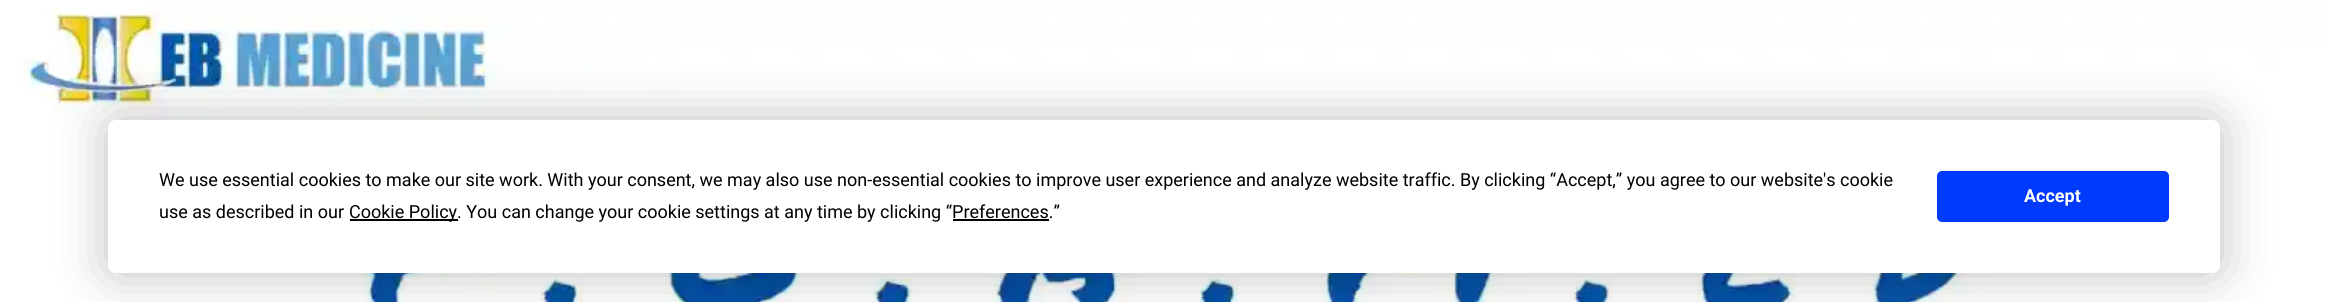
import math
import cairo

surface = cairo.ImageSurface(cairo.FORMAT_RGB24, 2327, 302)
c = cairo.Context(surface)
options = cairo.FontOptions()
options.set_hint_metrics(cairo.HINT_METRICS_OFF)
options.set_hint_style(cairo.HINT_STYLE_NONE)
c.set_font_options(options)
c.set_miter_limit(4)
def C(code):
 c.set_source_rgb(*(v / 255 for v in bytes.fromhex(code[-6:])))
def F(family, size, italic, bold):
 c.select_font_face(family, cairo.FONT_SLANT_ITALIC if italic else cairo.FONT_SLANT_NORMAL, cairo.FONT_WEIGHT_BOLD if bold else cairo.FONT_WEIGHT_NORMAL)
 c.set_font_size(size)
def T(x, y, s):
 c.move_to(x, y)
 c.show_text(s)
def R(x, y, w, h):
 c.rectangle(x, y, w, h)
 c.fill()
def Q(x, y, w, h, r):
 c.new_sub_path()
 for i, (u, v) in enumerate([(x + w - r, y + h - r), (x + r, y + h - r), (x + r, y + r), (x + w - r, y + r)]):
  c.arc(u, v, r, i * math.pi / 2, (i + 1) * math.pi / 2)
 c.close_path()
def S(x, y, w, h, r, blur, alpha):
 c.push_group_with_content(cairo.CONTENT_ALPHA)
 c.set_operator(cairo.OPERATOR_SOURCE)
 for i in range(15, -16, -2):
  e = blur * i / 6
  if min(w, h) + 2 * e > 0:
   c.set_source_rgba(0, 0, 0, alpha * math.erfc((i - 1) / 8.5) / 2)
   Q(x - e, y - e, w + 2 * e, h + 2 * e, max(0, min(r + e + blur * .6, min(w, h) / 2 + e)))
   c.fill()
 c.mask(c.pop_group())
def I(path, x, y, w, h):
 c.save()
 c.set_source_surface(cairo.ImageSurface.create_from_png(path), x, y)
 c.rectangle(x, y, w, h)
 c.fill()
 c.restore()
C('ffffff')
c.paint()
I('1.png',0,0,2327,302)
C('000000')
S(108,120,2112,153,8,26,.25)
C('ffffff')
Q(108,120,2112,153,8)
c.fill()
F('Roboto',18,0,0)
C('000000')
T(159,186,'We use essential cookies to make our site work. With your consent, we may also use non-essential cookies to improve user experience and analyze website traffic. By clicking “Accept,” you agree to our website\'s cookie')
T(159,218,'use as described in our')
R(350,219,108,2)
T(349,218,'Cookie Policy. You can change your cookie settings at any time by clicking “Preferences.”')
R(953,219,96,2)
C('003afa')
Q(1938,172,230,49,4)
c.fill_preserve()
c.stroke()
F('Roboto',18,0,1)
C('ffffff')
T(2024,202,'Accept')
surface.write_to_png('o.png')
